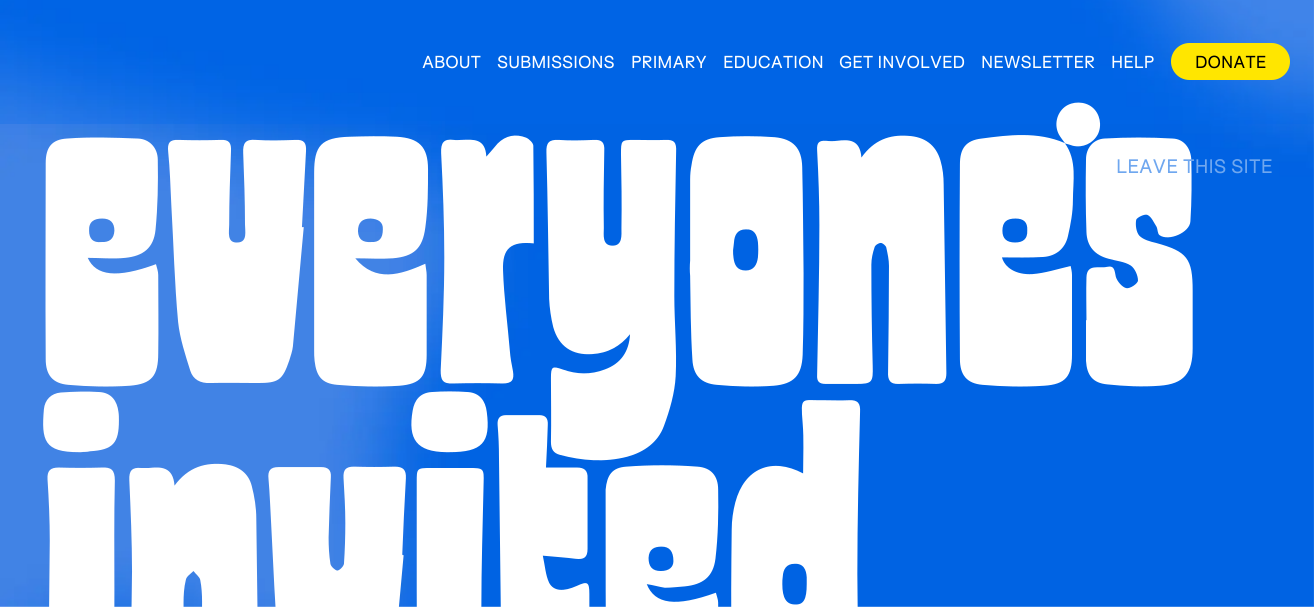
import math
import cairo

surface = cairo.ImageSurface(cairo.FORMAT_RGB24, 1314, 607)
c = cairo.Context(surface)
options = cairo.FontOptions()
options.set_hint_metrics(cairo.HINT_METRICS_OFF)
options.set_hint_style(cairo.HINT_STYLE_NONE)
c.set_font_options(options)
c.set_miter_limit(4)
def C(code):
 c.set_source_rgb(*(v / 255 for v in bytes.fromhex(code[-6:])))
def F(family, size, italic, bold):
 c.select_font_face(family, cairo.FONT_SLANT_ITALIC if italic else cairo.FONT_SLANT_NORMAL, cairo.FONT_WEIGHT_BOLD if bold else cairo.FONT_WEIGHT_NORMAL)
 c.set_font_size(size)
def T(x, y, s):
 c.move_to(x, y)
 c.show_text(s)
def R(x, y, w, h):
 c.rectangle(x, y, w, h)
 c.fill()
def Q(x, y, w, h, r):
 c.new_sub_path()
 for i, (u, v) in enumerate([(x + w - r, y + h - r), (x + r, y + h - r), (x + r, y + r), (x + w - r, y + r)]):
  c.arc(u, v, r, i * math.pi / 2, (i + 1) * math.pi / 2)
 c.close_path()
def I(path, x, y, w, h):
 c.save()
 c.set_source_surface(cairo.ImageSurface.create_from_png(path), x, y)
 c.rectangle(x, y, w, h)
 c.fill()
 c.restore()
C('ffffff')
c.paint()
I('1.png',0,0,1314,607)
c.set_source_rgba(0,0.408,0.937,0.25)
R(0,0,1314,124)
F('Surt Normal',16,0,0)
C('ffffff')
T(422,68,'ABOUT')
T(497,68,'SUBMISSIONS')
T(631,68,'PRIMARY')
T(723,68,'EDUCATION')
T(839,68,'GET INVOLVED')
T(981,68,'NEWSLETTER')
T(1111,68,'HELP')
C('ffe600')
Q(1171,43,119,37,18.5)
c.fill()
C('000000')
T(1195,68,'DONATE')
I('2.png',43,102,1150,505)
F('Surt Normal',18,0,0)
C('6fa7ef')
T(1116,173,'LEAVE THIS SITE')
surface.write_to_png('o.png')
